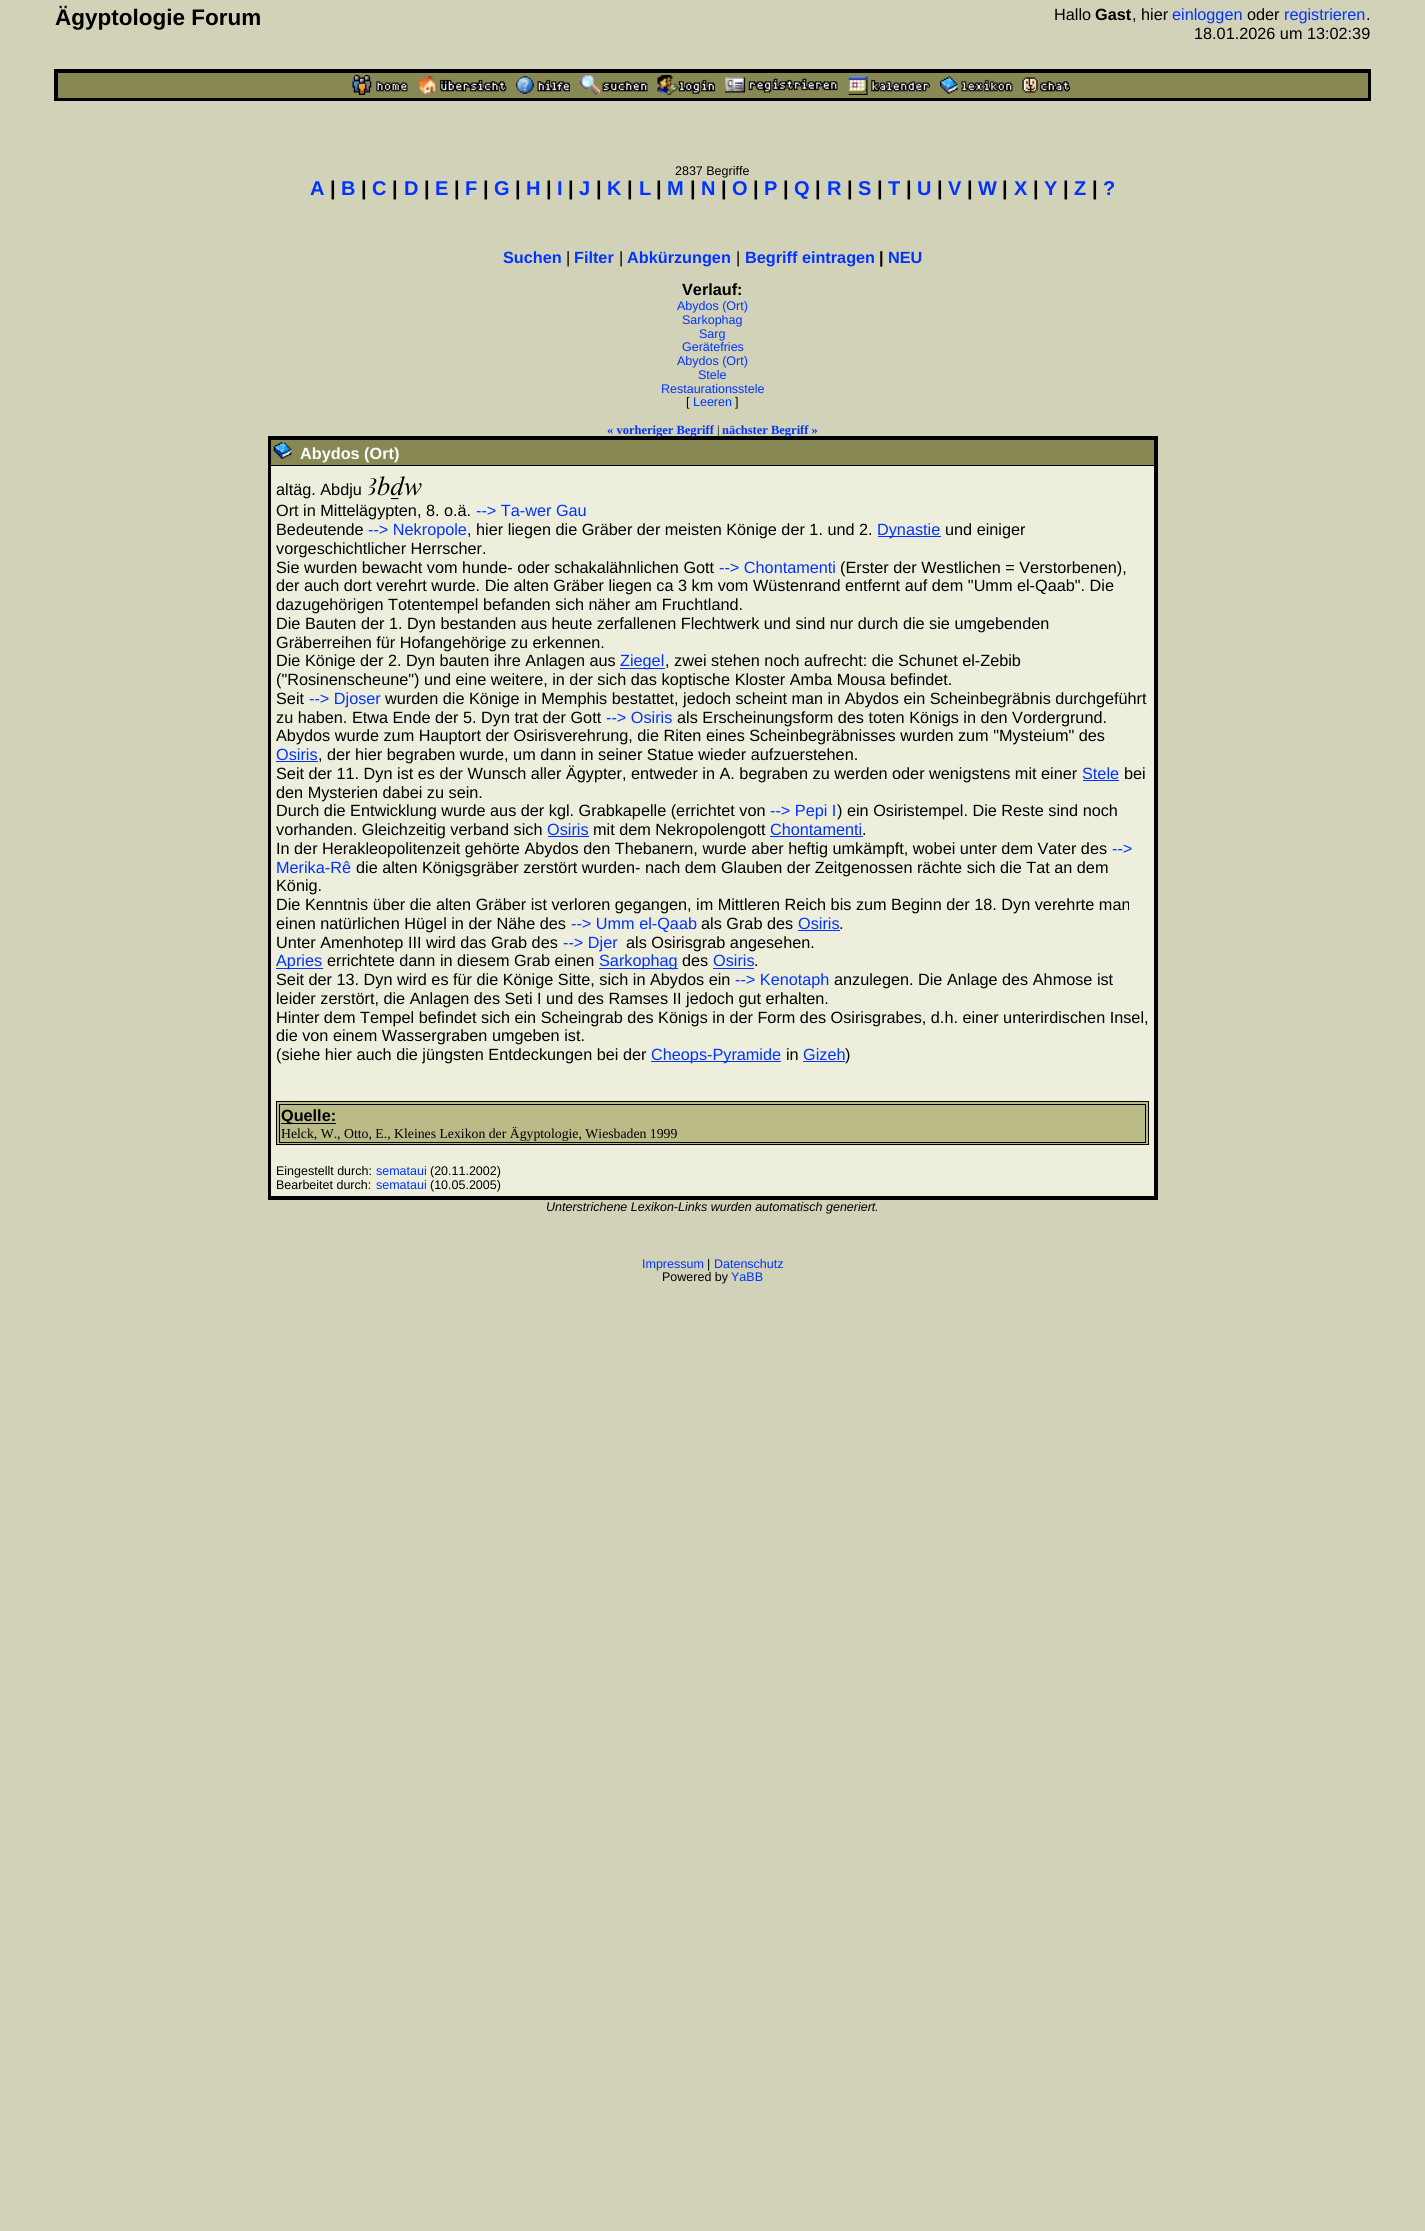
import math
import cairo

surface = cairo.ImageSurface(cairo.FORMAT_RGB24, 1425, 2231)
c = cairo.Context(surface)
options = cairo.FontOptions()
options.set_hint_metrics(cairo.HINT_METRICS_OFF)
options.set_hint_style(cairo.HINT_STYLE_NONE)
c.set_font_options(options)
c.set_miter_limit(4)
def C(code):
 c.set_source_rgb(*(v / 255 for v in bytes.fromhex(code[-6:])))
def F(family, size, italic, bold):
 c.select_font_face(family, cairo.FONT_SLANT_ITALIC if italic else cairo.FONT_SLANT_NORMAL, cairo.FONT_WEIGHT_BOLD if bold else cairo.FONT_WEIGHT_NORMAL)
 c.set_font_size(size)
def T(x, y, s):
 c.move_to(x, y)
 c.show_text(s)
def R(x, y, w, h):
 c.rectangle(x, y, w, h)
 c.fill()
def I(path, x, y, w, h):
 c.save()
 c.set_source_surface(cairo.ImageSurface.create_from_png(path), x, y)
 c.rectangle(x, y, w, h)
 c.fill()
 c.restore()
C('d2d2b9')
c.paint()
F('Liberation Sans',22.5,0,1)
C('000000')
T(55,25,'Ägyptologie Forum')
F('Liberation Sans',16.25,0,0)
T(1054,20,'Hallo')
F('Liberation Sans',16.25,0,1)
T(1095,20,'Gast')
F('Liberation Sans',16.25,0,0)
T(1132,20,', hier')
C('0033ff')
T(1172,20,'einloggen')
C('000000')
T(1247,20,'oder')
C('0033ff')
T(1284,20,'registrieren')
C('000000')
T(1366,20,'.')
T(1194,39,'18.01.2026 um 13:02:39')
R(54,69,1317,32)
C('888855')
R(58,73,1310,25)
I('1.png',352,75,56,20)
I('2.png',417,76,90,18)
I('3.png',516,76,54,18)
I('4.png',580,75,68,20)
I('5.png',657,75,58,20)
I('6.png',725,77,113,16)
I('7.png',847,76,83,19)
I('8.png',940,76,73,18)
I('9.png',1022,77,48,16)
F('Liberation Sans',12.5,0,0)
C('000000')
T(675,175,'2837 Begriffe')
F('Liberation Sans',20,0,1)
C('0033ff')
T(310,195,'A')
C('000000')
T(330,195,'|')
C('0033ff')
T(341,195,'B')
C('000000')
T(361,195,'|')
C('0033ff')
T(372,195,'C')
C('000000')
T(392,195,'|')
C('0033ff')
T(404,195,'D')
C('000000')
T(424,195,'|')
C('0033ff')
T(435,195,'E')
C('000000')
T(454,195,'|')
C('0033ff')
T(465,195,'F')
C('000000')
T(483,195,'|')
C('0033ff')
T(494,195,'G')
C('000000')
T(515,195,'|')
C('0033ff')
T(526,195,'H')
C('000000')
T(546,195,'|')
C('0033ff')
T(557,195,'I')
C('000000')
T(568,195,'|')
C('0033ff')
T(579,195,'J')
C('000000')
T(596,195,'|')
C('0033ff')
T(607,195,'K')
C('000000')
T(627,195,'|')
C('0033ff')
T(639,195,'L')
C('000000')
T(656,195,'|')
C('0033ff')
T(667,195,'M')
C('000000')
T(690,195,'|')
C('0033ff')
T(701,195,'N')
C('000000')
T(721,195,'|')
C('0033ff')
T(732,195,'O')
C('000000')
T(753,195,'|')
C('0033ff')
T(764,195,'P')
C('000000')
T(783,195,'|')
C('0033ff')
T(794,195,'Q')
C('000000')
T(815,195,'|')
C('0033ff')
T(827,195,'R')
C('000000')
T(847,195,'|')
C('0033ff')
T(858,195,'S')
C('000000')
T(877,195,'|')
C('0033ff')
T(888,195,'T')
C('000000')
T(906,195,'|')
C('0033ff')
T(917,195,'U')
C('000000')
T(937,195,'|')
C('0033ff')
T(948,195,'V')
C('000000')
T(967,195,'|')
C('0033ff')
T(978,195,'W')
C('000000')
T(1002,195,'|')
C('0033ff')
T(1014,195,'X')
C('000000')
T(1033,195,'|')
C('0033ff')
T(1044,195,'Y')
C('000000')
T(1063,195,'|')
C('0033ff')
T(1074,195,'Z')
C('000000')
T(1092,195,'|')
C('0033ff')
T(1103,195,'?')
F('Liberation Sans',16.25,0,1)
T(503,263,'Suchen')
F('Liberation Sans',16.25,0,0)
C('000000')
T(566,263,'|')
F('Liberation Sans',16.25,0,1)
C('0033ff')
T(574,263,'Filter')
F('Liberation Sans',16.25,0,0)
C('000000')
T(619,263,'|')
F('Liberation Sans',16.25,0,1)
C('0033ff')
T(627,263,'Abkürzungen')
F('Liberation Sans',16.25,0,0)
C('000000')
T(736,263,'|')
F('Liberation Sans',16.25,0,1)
C('0033ff')
T(745,263,'Begriff eintragen')
C('000000')
T(879,263,'|')
C('0033ff')
T(888,263,'NEU')
C('000000')
T(682,295,'Verlauf:')
F('Liberation Sans',12.5,0,0)
C('0033ff')
T(677,310,'Abydos (Ort)')
T(682,324,'Sarkophag')
T(699,338,'Sarg')
T(682,351,'Gerätefries')
T(677,365,'Abydos (Ort)')
T(698,379,'Stele')
T(661,393,'Restaurationsstele')
C('000000')
T(686,406,'[')
C('0033ff')
T(693,406,'Leeren')
C('000000')
T(735,406,']')
R(268,436,890,764)
F('Liberation Serif',12.5,0,1)
C('0033ff')
T(607,434,'« vorheriger Begriff')
F('Liberation Serif',12.5,0,0)
C('000000')
T(717,434,'|')
F('Liberation Serif',12.5,0,1)
C('0033ff')
T(722,434,'nächster Begriff »')
C('888855')
R(271,440,883,25)
I('10.png',273,442,19,17)
F('Liberation Sans',16.25,0,1)
C('ffffff')
T(300,459,'Abydos (Ort)')
C('eeeedd')
R(271,466,883,730)
F('Liberation Sans',16.25,0,0)
C('000000')
T(276,495,'altäg. Abdju')
F('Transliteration',27,1,0)
T(367,495,'AbDw')
F('Liberation Sans',16.25,0,0)
T(276,516,'Ort in Mittelägypten, 8. o.ä.')
C('0033ff')
T(476,516,'--> Ta-wer Gau')
C('000000')
T(276,535,'Bedeutende')
C('0033ff')
T(368,535,'--> Nekropole')
C('000000')
T(467,535,', hier liegen die Gräber der meisten Könige der 1. und 2.')
C('0033ff')
R(878,536,63,1)
T(877,535,'Dynastie')
C('000000')
T(945,535,'und einiger')
T(276,554,'vorgeschichtlicher Herrscher.')
T(276,573,'Sie wurden bewacht vom hunde- oder schakalähnlichen Gott')
C('0033ff')
T(719,573,'--> Chontamenti')
C('000000')
T(840,573,'(Erster der Westlichen = Verstorbenen),')
T(276,591,'der auch dort verehrt wurde. Die alten Gräber liegen ca 3 km vom Wüstenrand entfernt auf dem "Umm el-Qaab". Die')
T(276,610,'dazugehörigen Totentempel befanden sich näher am Fruchtland.')
T(276,629,'Die Bauten der 1. Dyn bestanden aus heute zerfallenen Flechtwerk und sind nur durch die sie umgebenden')
T(276,648,'Gräberreihen für Hofangehörige zu erkennen.')
T(276,666,'Die Könige der 2. Dyn bauten ihre Anlagen aus')
C('0033ff')
R(620,668,45,1)
T(620,666,'Ziegel')
C('000000')
T(665,666,', zwei stehen noch aufrecht: die Schunet el-Zebib')
T(276,685,'("Rosinenscheune") und eine weitere, in der sich das koptische Kloster Amba Mousa befindet.')
T(276,704,'Seit')
C('0033ff')
T(309,704,'--> Djoser')
C('000000')
T(385,704,'wurden die Könige in Memphis bestattet, jedoch scheint man in Abydos ein Scheinbegräbnis durchgeführt')
T(276,723,'zu haben. Etwa Ende der 5. Dyn trat der Gott')
C('0033ff')
T(606,723,'--> Osiris')
C('000000')
T(677,723,'als Erscheinungsform des toten Königs in den Vordergrund.')
T(276,741,'Abydos wurde zum Hauptort der Osirisverehrung, die Riten eines Scheinbegräbnisses wurden zum "Mysteium" des')
C('0033ff')
T(276,760,'Osiris')
C('000000')
T(318,760,', der hier begraben wurde, um dann in seiner Statue wieder aufzuerstehen.')
C('0033ff')
R(276,761,42,1)
C('000000')
T(276,779,'Seit der 11. Dyn ist es der Wunsch aller Ägypter, entweder in A. begraben zu werden oder wenigstens mit einer')
C('0033ff')
T(1082,779,'Stele')
R(1083,780,36,1)
C('000000')
T(1124,779,'bei')
T(276,798,'den Mysterien dabei zu sein.')
T(276,816,'Durch die Entwicklung wurde aus der kgl. Grabkapelle (errichtet von')
C('0033ff')
T(770,816,'--> Pepi I')
C('000000')
T(837,816,') ein Osiristempel. Die Reste sind noch')
T(276,835,'vorhanden. Gleichzeitig verband sich')
C('0033ff')
T(547,835,'Osiris')
R(548,836,41,1)
C('000000')
T(593,835,'mit dem Nekropolengott')
C('0033ff')
T(770,835,'Chontamenti')
C('000000')
T(862,835,'.')
C('0033ff')
R(770,836,93,1)
C('000000')
T(276,854,'In der Herakleopolitenzeit gehörte Abydos den Thebanern, wurde aber heftig umkämpft, wobei unter dem Vater des')
C('0033ff')
T(1112,854,'-->')
T(276,873,'Merika-Rê')
C('000000')
T(356,873,'die alten Königsgräber zerstört wurden- nach dem Glauben der Zeitgenossen rächte sich die Tat an dem')
T(276,891,'König.')
T(276,910,'Die Kenntnis über die alten Gräber ist verloren gegangen, im Mittleren Reich bis zum Beginn der 18. Dyn verehrte man')
T(276,929,'einen natürlichen Hügel in der Nähe des')
C('0033ff')
T(571,929,'--> Umm el-Qaab')
C('000000')
T(701,929,'als Grab des')
C('0033ff')
T(798,929,'Osiris')
C('000000')
T(839,929,'.')
C('0033ff')
R(798,930,42,1)
C('000000')
T(276,948,'Unter Amenhotep III wird das Grab des')
C('0033ff')
T(563,948,'--> Djer')
C('000000')
T(626,948,'als Osirisgrab angesehen.')
C('0033ff')
R(276,968,47,1)
T(276,966,'Apries')
C('000000')
T(327,966,'errichtete dann in diesem Grab einen')
C('0033ff')
R(599,968,79,1)
T(599,966,'Sarkophag')
C('000000')
T(682,966,'des')
C('0033ff')
T(713,966,'Osiris')
C('000000')
T(754,966,'.')
C('0033ff')
R(713,968,41,1)
C('000000')
T(276,985,'Seit der 13. Dyn wird es für die Könige Sitte, sich in Abydos ein')
C('0033ff')
T(735,985,'--> Kenotaph')
C('000000')
T(834,985,'anzulegen. Die Anlage des Ahmose ist')
T(276,1004,'leider zerstört, die Anlagen des Seti I und des Ramses II jedoch gut erhalten.')
T(276,1023,'Hinter dem Tempel befindet sich ein Scheingrab des Königs in der Form des Osirisgrabes, d.h. einer unterirdischen Insel,')
T(276,1041,'die von einem Wassergraben umgeben ist.')
T(276,1060,'(siehe hier auch die jüngsten Entdeckungen bei der')
C('0033ff')
R(651,1061,130,1)
T(651,1060,'Cheops-Pyramide')
C('000000')
T(786,1060,'in')
C('0033ff')
T(803,1060,'Gizeh')
C('000000')
T(845,1060,')')
C('0033ff')
R(803,1061,42,1)
C('bbbb88')
c.rectangle(276.5,1101.5,872,43)
c.fill_preserve()
C('000000')
c.set_line_width(1)
c.stroke()
c.rectangle(279.5,1104.5,866,38)
c.stroke()
R(281,1123,55,1)
F('Liberation Sans',16.25,0,1)
T(281,1121,'Quelle:')
F('Liberation Serif',13.75,0,0)
T(281,1138,'Helck, W., Otto, E., Kleines Lexikon der Ägyptologie, Wiesbaden 1999')
F('Liberation Sans',12.5,0,0)
T(276,1175,'Eingestellt durch:')
C('0033ff')
T(376,1175,'semataui')
C('000000')
T(430,1175,'(20.11.2002)')
T(276,1189,'Bearbeitet durch:')
C('0033ff')
T(376,1189,'semataui')
C('000000')
T(430,1189,'(10.05.2005)')
F('Liberation Sans',12.5,1,0)
T(546,1211,'Unterstrichene Lexikon-Links wurden automatisch generiert.')
F('Liberation Sans',12.5,0,0)
C('0033ff')
T(642,1268,'Impressum')
C('000000')
T(707,1268,'|')
C('0033ff')
T(714,1268,'Datenschutz')
C('000000')
T(662,1281,'Powered by')
C('0033ff')
T(731,1281,'YaBB')
surface.write_to_png('o.png')
